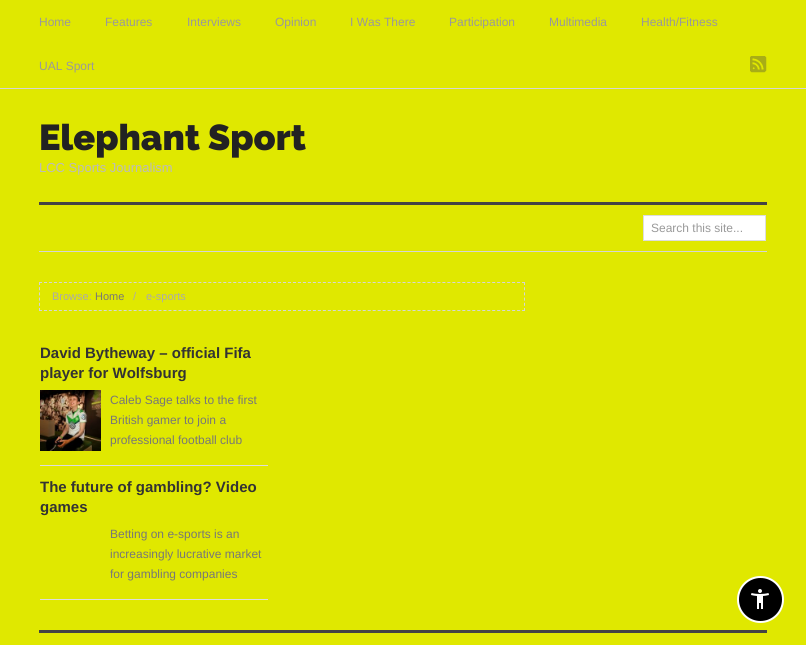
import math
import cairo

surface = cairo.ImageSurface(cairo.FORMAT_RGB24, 806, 645)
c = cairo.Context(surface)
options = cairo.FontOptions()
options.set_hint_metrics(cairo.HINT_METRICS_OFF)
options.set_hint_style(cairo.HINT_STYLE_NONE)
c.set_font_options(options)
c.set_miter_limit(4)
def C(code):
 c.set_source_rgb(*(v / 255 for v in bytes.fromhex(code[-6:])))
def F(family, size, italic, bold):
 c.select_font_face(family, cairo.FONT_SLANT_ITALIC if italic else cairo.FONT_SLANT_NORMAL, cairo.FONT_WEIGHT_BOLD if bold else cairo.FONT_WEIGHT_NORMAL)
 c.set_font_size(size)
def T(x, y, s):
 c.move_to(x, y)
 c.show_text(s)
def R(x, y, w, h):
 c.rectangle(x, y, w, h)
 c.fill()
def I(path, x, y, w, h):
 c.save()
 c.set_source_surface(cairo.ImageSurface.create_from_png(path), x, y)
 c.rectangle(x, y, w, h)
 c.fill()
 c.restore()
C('e0e800')
c.paint()
C('d5d5d5')
R(0,88,806,1)
F('Liberation Sans',12,0,0)
C('999999')
T(39,26,'Home')
T(105,26,'Features')
T(187,26,'Interviews')
T(275,26,'Opinion')
T(350,26,'I Was There')
T(449,26,'Participation')
T(549,26,'Multimedia')
T(641,26,'Health/Fitness')
T(39,70,'UAL Sport')
I('1.png',750,56,17,17)
F('Raleway Black',36,0,0)
C('222222')
T(39,150,'Elephant Sport')
F('Liberation Sans',13,0,0)
C('bbbbbb')
T(39,172,'LCC Sports Journalism')
C('444444')
R(39,202,728,3)
C('d5d5d5')
R(39,251,728,1)
C('ffffff')
c.rectangle(643.5,215.5,122,25)
c.fill_preserve()
C('dddddd')
c.set_line_width(1)
c.stroke()
F('Liberation Sans',12,0,0)
C('999999')
T(651,232,'Search this site...')
c.new_path()
c.move_to(39,282.5)
c.line_to(525,282.5)
C('d5d5d5')
c.set_dash([3,1.98])
c.stroke()
c.new_path()
c.move_to(524.5,282)
c.line_to(524.5,311)
c.set_dash([3,2.2])
c.stroke()
c.new_path()
c.move_to(39,310.5)
c.line_to(525,310.5)
c.set_dash([3,1.98])
c.stroke()
c.new_path()
c.move_to(39.5,282)
c.line_to(39.5,311)
c.set_dash([3,2.2])
c.stroke()
F('Liberation Sans',11,0,0)
C('aaaaaa')
T(52,300,'Browse:')
C('777777')
T(95,300,'Home')
C('aaaaaa')
T(133,300,'/')
T(146,300,'e-sports')
C('dddddd')
R(40,465,228,1)
F('Liberation Sans',15,0,1)
C('333333')
T(40,358,'David Bytheway – official Fifa')
T(40,378,'player for Wolfsburg')
I('2.png',40,390,61,61)
F('Liberation Sans',12,0,0)
C('777777')
T(110,404,'Caleb Sage talks to the first')
T(110,424,'British gamer to join a')
T(110,444,'professional football club')
C('dddddd')
R(40,599,228,1)
F('Liberation Sans',15,0,1)
C('333333')
T(40,492,'The future of gambling? Video')
T(40,512,'games')
F('Liberation Sans',12,0,0)
C('777777')
T(110,538,'Betting on e-sports is an')
T(110,558,'increasingly lucrative market')
T(110,578,'for gambling companies')
C('444444')
R(39,630,728,3)
C('000000')
c.new_path()
c.arc(760.5,599.5,22.5,0,2 * math.pi)
c.fill_preserve()
C('ffffff')
c.set_line_width(2)
c.set_dash([])
c.stroke()
I('3.png',751,589,18,20)
surface.write_to_png('o.png')
